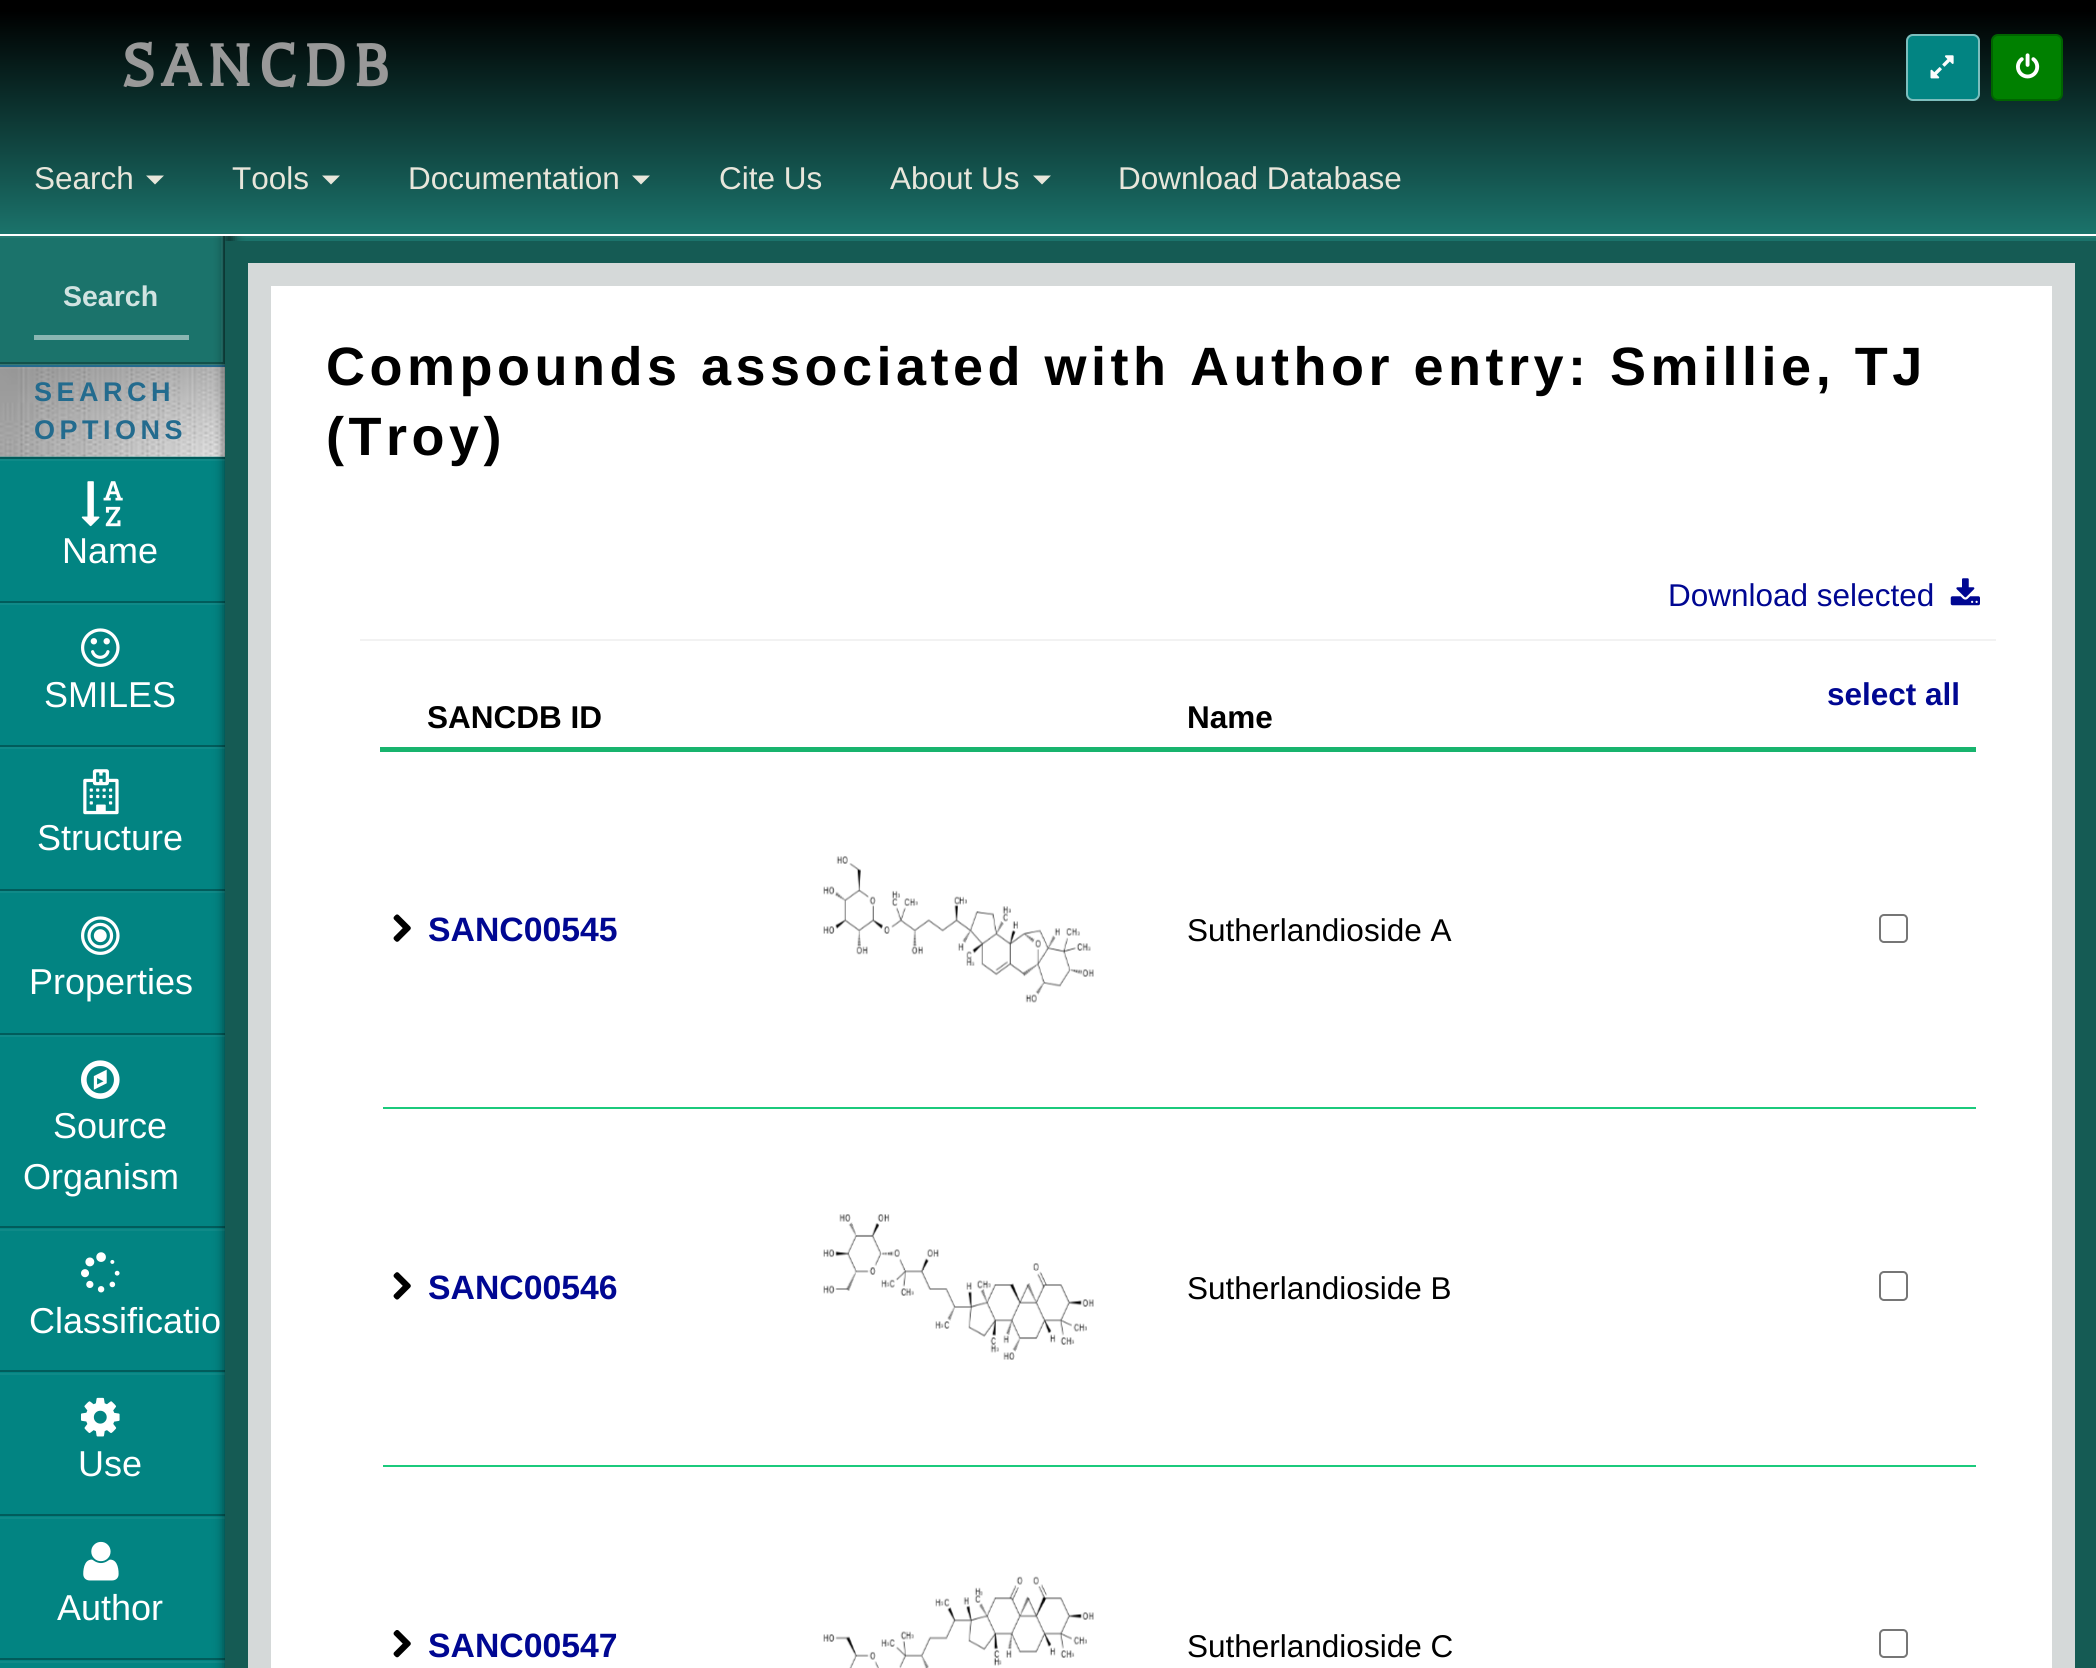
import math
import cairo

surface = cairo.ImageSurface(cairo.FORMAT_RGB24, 2096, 1668)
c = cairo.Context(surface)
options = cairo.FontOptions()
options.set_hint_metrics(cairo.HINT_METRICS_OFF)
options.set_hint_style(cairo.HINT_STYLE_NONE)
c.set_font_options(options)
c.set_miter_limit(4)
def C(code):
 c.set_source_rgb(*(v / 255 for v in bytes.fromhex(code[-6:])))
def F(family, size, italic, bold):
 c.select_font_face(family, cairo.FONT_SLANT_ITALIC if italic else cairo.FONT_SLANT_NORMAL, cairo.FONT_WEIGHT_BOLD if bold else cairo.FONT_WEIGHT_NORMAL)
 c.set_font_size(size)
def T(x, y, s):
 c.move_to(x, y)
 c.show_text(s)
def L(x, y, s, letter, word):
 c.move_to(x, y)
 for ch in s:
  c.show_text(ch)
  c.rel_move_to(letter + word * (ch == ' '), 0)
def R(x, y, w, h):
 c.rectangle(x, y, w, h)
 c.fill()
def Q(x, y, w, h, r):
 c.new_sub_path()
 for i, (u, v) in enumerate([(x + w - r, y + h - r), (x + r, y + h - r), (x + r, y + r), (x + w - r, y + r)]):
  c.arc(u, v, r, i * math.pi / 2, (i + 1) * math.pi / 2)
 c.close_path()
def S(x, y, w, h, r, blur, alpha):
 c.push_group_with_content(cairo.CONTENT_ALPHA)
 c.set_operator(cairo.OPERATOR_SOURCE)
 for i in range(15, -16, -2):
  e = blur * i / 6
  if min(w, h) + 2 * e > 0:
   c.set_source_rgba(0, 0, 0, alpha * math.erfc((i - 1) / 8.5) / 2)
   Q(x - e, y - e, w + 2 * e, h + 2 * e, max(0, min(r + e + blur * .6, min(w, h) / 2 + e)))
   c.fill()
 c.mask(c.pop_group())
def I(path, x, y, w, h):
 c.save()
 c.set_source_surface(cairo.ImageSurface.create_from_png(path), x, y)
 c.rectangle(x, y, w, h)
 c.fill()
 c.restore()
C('1b736b')
c.paint()
C('13514b')
R(223,236,2,126)
C('267a72')
R(221,236,2,126)
R(0,236,2096,2)
C('1b5550')
R(223,236,2,2)
C('318179')
R(221,236,2,2)
C('13514b')
R(0,362,225,2)
C('028482')
R(0,456,225,1212)
I('3.png',0,364,225,93)
c.set_source_rgba(1,1,1,0.05)
R(0,367,225,2)
C('236b8e')
R(0,365,225,2)
C('0f8a88')
R(0,459,225,2)
C('015c5b')
R(0,457,225,2)
C('0f8a88')
R(0,603,225,2)
C('015c5b')
R(0,601,225,2)
C('0f8a88')
R(0,747,225,2)
C('015c5b')
R(0,745,225,2)
C('0f8a88')
R(0,891,225,2)
C('015c5b')
R(0,889,225,2)
C('0f8a88')
R(0,1035,225,2)
C('015c5b')
R(0,1033,225,2)
C('0f8a88')
R(0,1229,225,2)
C('015c5b')
R(0,1226,225,2)
C('0f8a88')
R(0,1373,225,2)
C('015c5b')
R(0,1370,225,2)
C('0f8a88')
R(0,1517,225,2)
C('015c5b')
R(0,1514,225,2)
C('0f8a88')
R(0,1661,225,2)
C('015c5b')
R(0,1658,225,2)
C('000000')
S(225,-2,9,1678,0,5.5,.6)
gradient = cairo.LinearGradient(1049,11,1049,234)
gradient.add_color_stop_rgba(0,0,0,0,1)
gradient.add_color_stop_rgba(1,0.106,0.451,0.42,1)
c.set_source(gradient)
R(0,11,2096,223)
C('000000')
R(0,0,2096,11)
C('ffffff')
R(0,234,2096,2)
F('Balthazar',67.5,0,1)
C('999999')
L(121,86,'SANCDB',6.75,0)
C('028482')
Q(1906,34,74,67,7)
c.fill()
Q(1907,35,72,65,6)
c.set_source_rgba(0.973,0.973,0.973,0.5)
c.stroke()
I('1.png',1930,55,24,24)
C('008000')
Q(1992,35,70,65,6)
c.fill_preserve()
C('006400')
c.stroke()
I('2.png',2016,53,24,26)
F('Liberation Sans',31.5,0,0)
C('e8e6db')
T(34,189,'Search')
c.set_source_rgba(1,0.965,0.918,0.9)
c.new_path()
c.move_to(146,175.5)
c.line_to(164,175.5)
c.line_to(155,184.5)
c.close_path()
c.fill()
C('e8e6db')
T(232,189,'Tools')
c.set_source_rgba(1,0.965,0.918,0.9)
c.new_path()
c.move_to(322,175.5)
c.line_to(340,175.5)
c.line_to(331,184.5)
c.close_path()
c.fill()
C('e8e6db')
T(408,189,'Documentation')
c.set_source_rgba(1,0.965,0.918,0.9)
c.new_path()
c.move_to(632,175.5)
c.line_to(650,175.5)
c.line_to(641,184.5)
c.close_path()
c.fill()
C('e8e6db')
T(719,189,'Cite Us')
T(890,189,'About Us')
c.set_source_rgba(1,0.965,0.918,0.9)
c.new_path()
c.move_to(1033,175.5)
c.line_to(1051,175.5)
c.line_to(1042,184.5)
c.close_path()
c.fill()
C('e8e6db')
T(1118,189,'Download Database')
C('8ab6b2')
R(34,335,155,5)
F('Liberation Sans',28.5,0,1)
C('d1e3e1')
T(63,306,'Search')
F('Liberation Sans',27,0,1)
C('236b8e')
L(34,401,'SEARCH',4.5,0)
L(34,439,'OPTIONS',4.5,0)
I('4.png',81,481,42,46)
F('Liberation Sans',36,0,0)
C('ffffff')
T(62,563,'Name')
I('5.png',81,628,39,39)
T(44,707,'SMILES')
I('6.png',83,769,36,46)
T(37,850,'Structure')
I('7.png',81,916,39,39)
T(29,994,'Properties')
I('8.png',81,1060,39,39)
T(53,1138,'Source')
T(23,1189,'Organism')
I('9.png',81,1252,39,41)
T(29,1333,'Classificatio')
I('10.png',81,1397,39,40)
T(78,1476,'Use')
I('11.png',83,1541,36,40)
T(57,1620,'Author')
C('155b54')
R(225,241,1871,1427)
C('ffffff')
c.rectangle(259.5,274.5,1804,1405)
c.fill_preserve()
C('d5d9d9')
c.set_line_width(23)
c.stroke()
F('Liberation Sans',54,0,1)
C('000000')
L(326,385,'Compounds associated with Author entry: Smillie, TJ',4.5,0)
L(326,455,'(Troy)',4.5,0)
F('Liberation Sans',31.5,0,0)
C('000792')
T(1668,606,'Download selected')
I('12.png',1950,578,30,28)
C('f2f2f2')
R(360,639,1636,2)
C('18b46e')
R(380,747,1596,5)
F('Liberation Sans',31.5,0,1)
C('000792')
T(1827,705,'select all')
C('000000')
T(427,728,'SANCDB ID')
T(1187,728,'Name')
I('13.png',393,914,18,28)
F('Liberation Sans',33.75,0,1)
C('000792')
T(428,941,'SANC00545')
I('14.png',823,856,271,147)
F('Liberation Sans',31.5,0,0)
C('000000')
T(1187,941,'Sutherlandioside A')
Q(1880,915,27,27,4)
C('767676')
c.set_line_width(2)
c.stroke()
C('1bca7c')
R(383,1107,1593,2)
Q(1880,1272,27,28,4)
C('767676')
c.stroke()
I('15.png',393,1272,18,28)
F('Liberation Sans',33.75,0,1)
C('000792')
T(428,1299,'SANC00546')
I('16.png',823,1214,271,146)
F('Liberation Sans',31.5,0,0)
C('000000')
T(1187,1299,'Sutherlandioside B')
C('1bca7c')
R(383,1465,1593,2)
Q(1880,1630,27,27,4)
C('767676')
c.stroke()
I('17.png',393,1630,18,28)
F('Liberation Sans',33.75,0,1)
C('000792')
T(428,1657,'SANC00547')
I('18.png',823,1576,271,92)
F('Liberation Sans',31.5,0,0)
C('000000')
T(1187,1657,'Sutherlandioside C')
surface.write_to_png('o.png')
